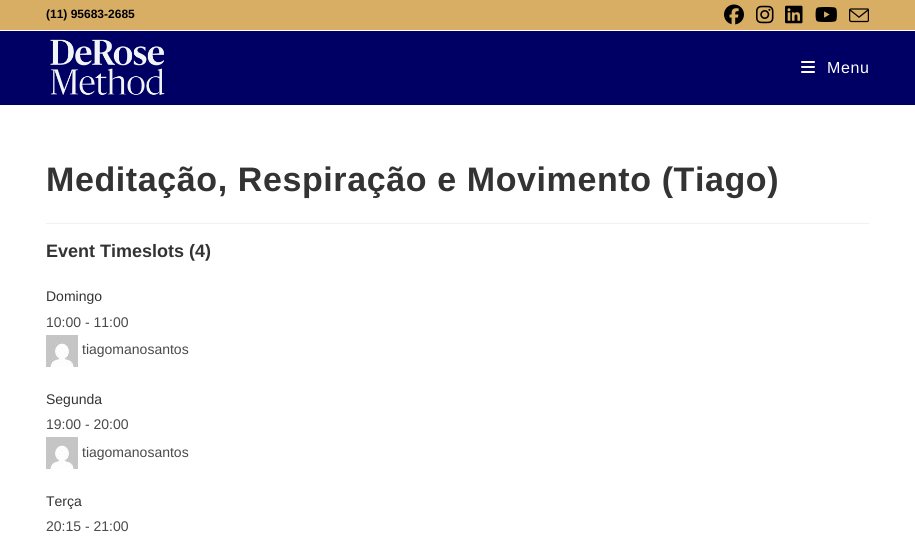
import math
import cairo

surface = cairo.ImageSurface(cairo.FORMAT_RGB24, 915, 538)
c = cairo.Context(surface)
options = cairo.FontOptions()
options.set_hint_metrics(cairo.HINT_METRICS_OFF)
options.set_hint_style(cairo.HINT_STYLE_NONE)
c.set_font_options(options)
c.set_miter_limit(4)
def C(code):
 c.set_source_rgb(*(v / 255 for v in bytes.fromhex(code[-6:])))
def F(family, size, italic, bold):
 c.select_font_face(family, cairo.FONT_SLANT_ITALIC if italic else cairo.FONT_SLANT_NORMAL, cairo.FONT_WEIGHT_BOLD if bold else cairo.FONT_WEIGHT_NORMAL)
 c.set_font_size(size)
def T(x, y, s):
 c.move_to(x, y)
 c.show_text(s)
def L(x, y, s, letter, word):
 c.move_to(x, y)
 for ch in s:
  c.show_text(ch)
  c.rel_move_to(letter + word * (ch == ' '), 0)
def R(x, y, w, h):
 c.rectangle(x, y, w, h)
 c.fill()
def I(path, x, y, w, h):
 c.save()
 c.set_source_surface(cairo.ImageSurface.create_from_png(path), x, y)
 c.rectangle(x, y, w, h)
 c.fill()
 c.restore()
C('ffffff')
c.paint()
C('d8ae64')
R(0,0,915,30)
F('Liberation Sans',12,0,1)
C('000000')
T(46,18,'(11) 95683-2685')
I('1.png',724,4,20,21)
I('2.png',756,5,18,19)
I('3.png',785,5,18,19)
I('4.png',815,7,22,15)
I('5.png',849,8,20,15)
C('000064')
R(0,31,915,74)
I('6.png',50,39,115,56)
I('7.png',801,61,14,12)
F('Liberation Sans',16,0,0)
C('ffffff')
L(827,73,'Menu',.6,0)
C('f1f1f1')
R(46,223,823,1)
F('Liberation Sans',34,0,1)
C('333333')
L(46,191,'Meditação, Respiração e Movimento (Tiago)',.6,0)
F('Liberation Sans',18,0,1)
T(46,257,'Event Timeslots (4)')
F('Liberation Sans',14,0,0)
T(46,301,'Domingo')
C('4a4a4a')
T(46,327,'10:00 - 11:00')
I('8.png',46,335,32,32)
T(82,354,'tiagomanosantos')
C('333333')
T(46,404,'Segunda')
C('4a4a4a')
T(46,429,'19:00 - 20:00')
I('8.png',46,437,32,32)
T(82,457,'tiagomanosantos')
C('333333')
T(46,506,'Terça')
C('4a4a4a')
T(46,531,'20:15 - 21:00')
surface.write_to_png('o.png')
